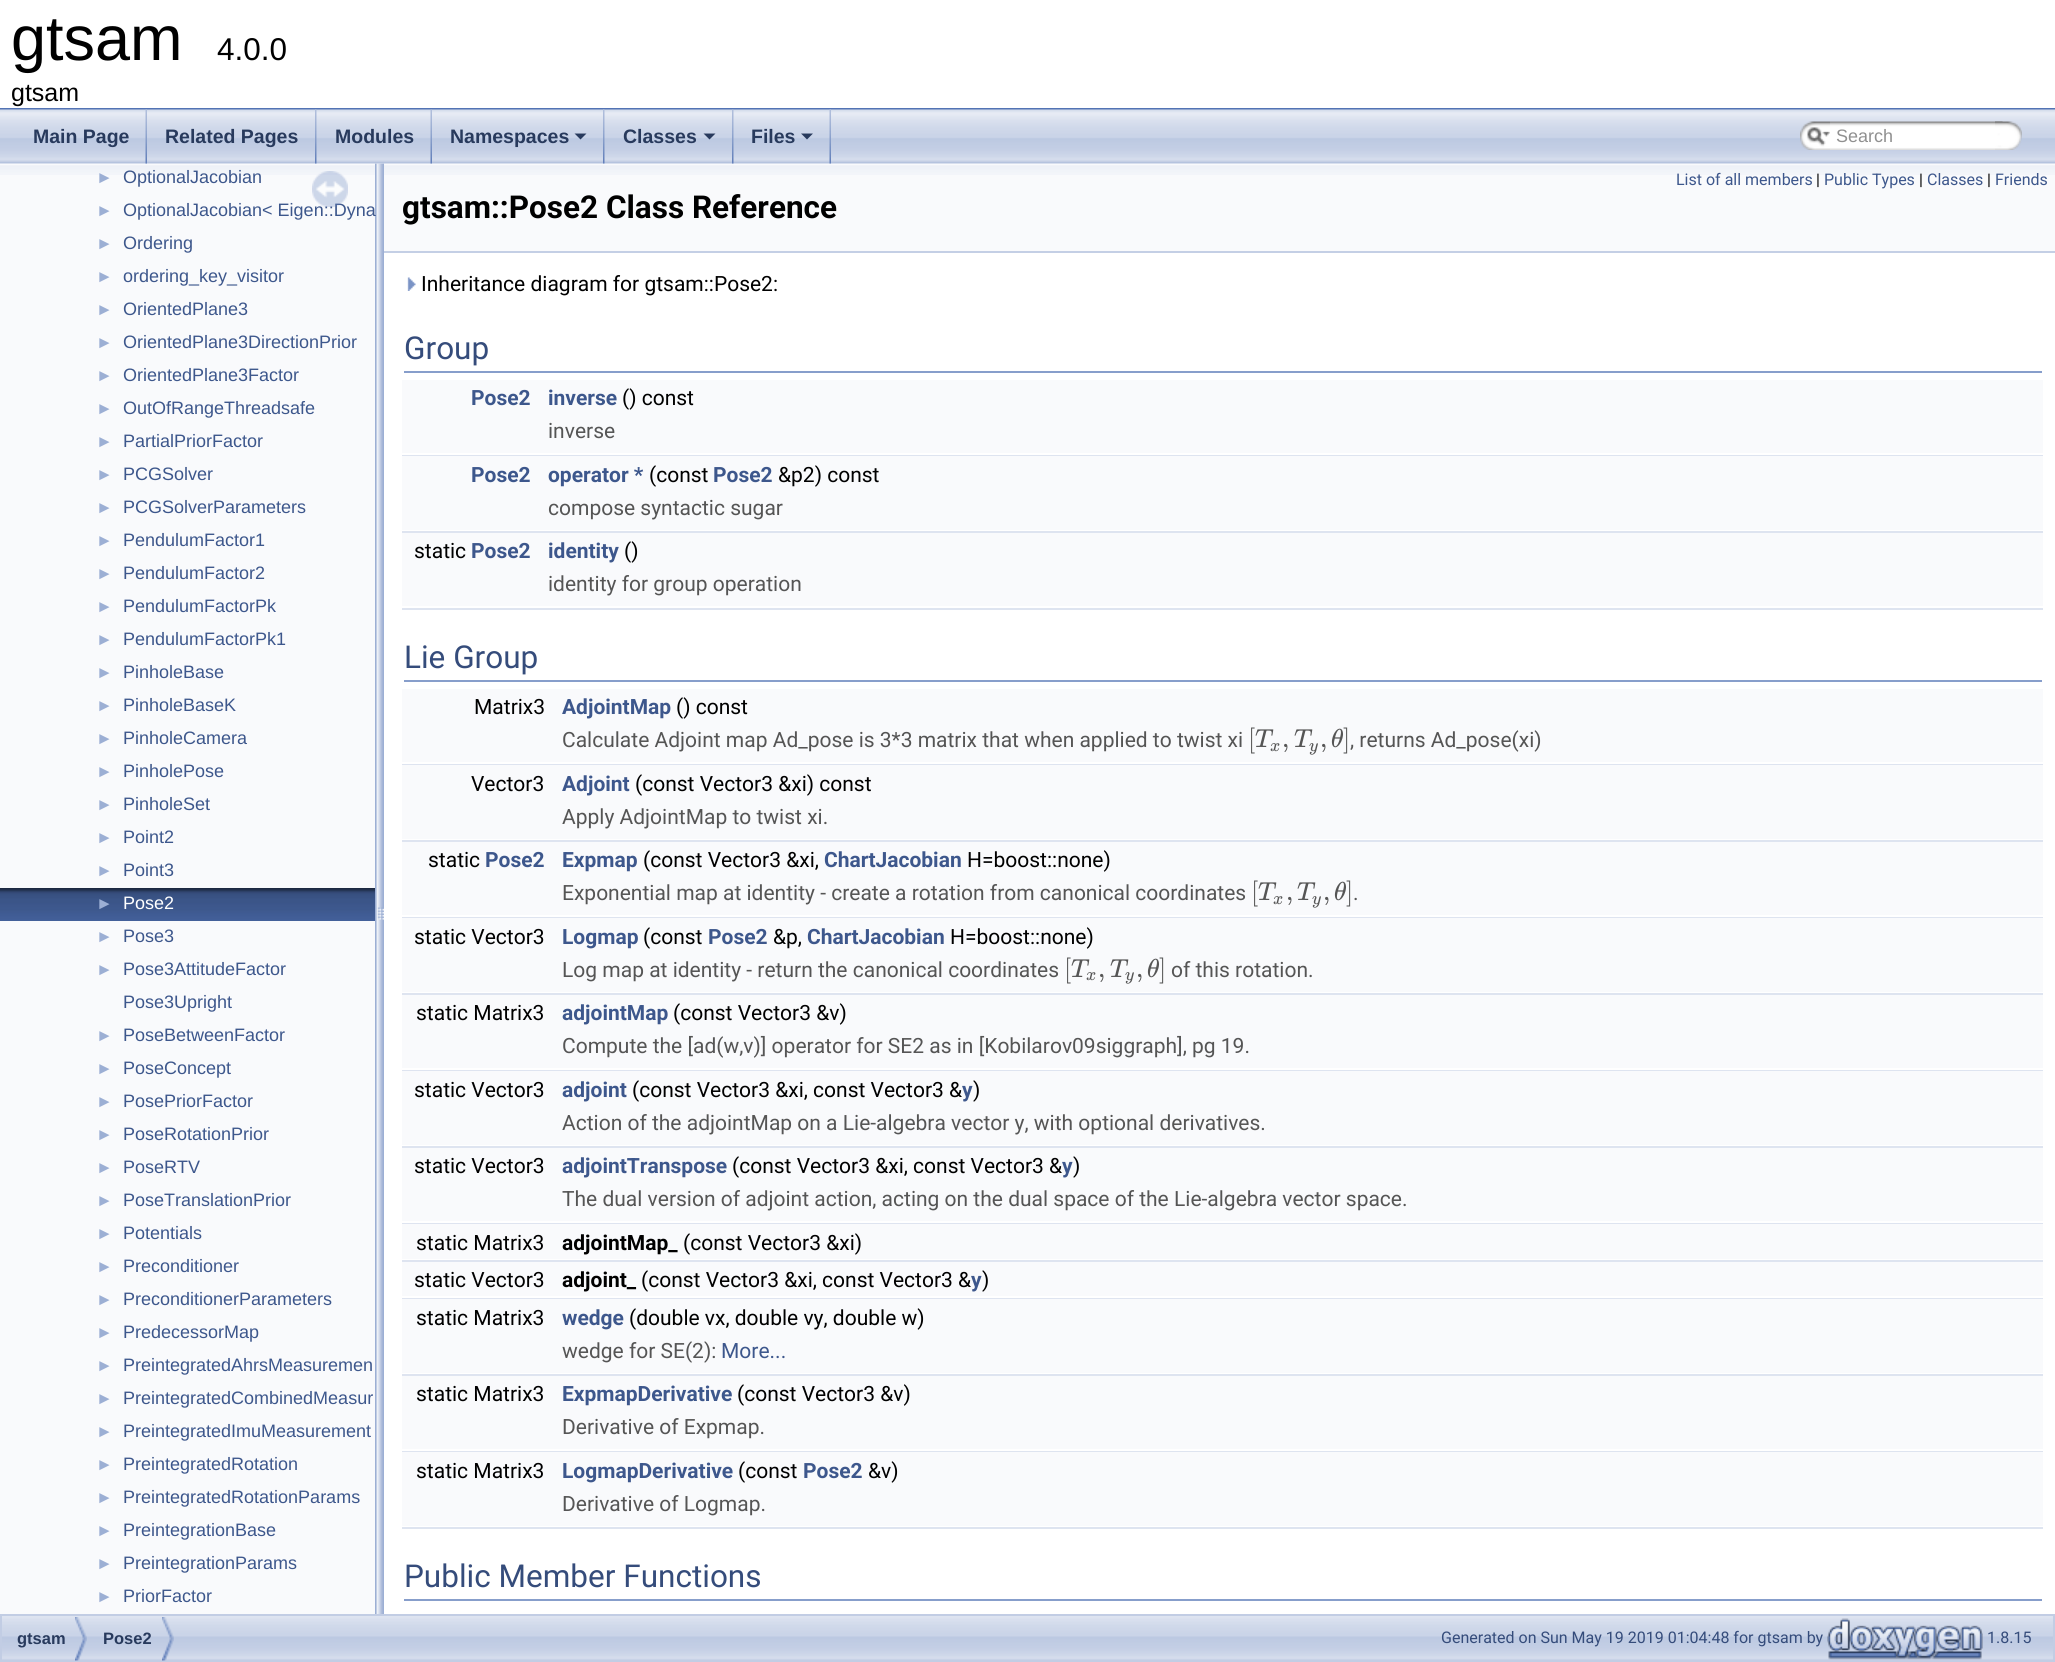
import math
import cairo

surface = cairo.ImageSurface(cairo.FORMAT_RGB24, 2055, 1662)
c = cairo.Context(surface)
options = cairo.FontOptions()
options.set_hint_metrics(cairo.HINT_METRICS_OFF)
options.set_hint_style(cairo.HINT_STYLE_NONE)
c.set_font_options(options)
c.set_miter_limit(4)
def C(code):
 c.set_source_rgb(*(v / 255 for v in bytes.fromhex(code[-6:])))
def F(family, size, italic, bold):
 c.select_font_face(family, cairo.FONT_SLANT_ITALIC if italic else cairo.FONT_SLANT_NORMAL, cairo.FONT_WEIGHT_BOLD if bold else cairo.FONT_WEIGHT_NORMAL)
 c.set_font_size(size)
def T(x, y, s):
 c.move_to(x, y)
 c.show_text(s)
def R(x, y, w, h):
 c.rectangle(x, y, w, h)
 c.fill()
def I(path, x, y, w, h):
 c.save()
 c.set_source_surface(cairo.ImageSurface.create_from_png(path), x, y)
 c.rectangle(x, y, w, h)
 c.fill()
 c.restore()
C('ffffff')
c.paint()
C('5373b4')
R(0,108,2055,2)
F('Liberation Sans',63,0,0)
C('000000')
T(11,60,'gtsam')
F('Liberation Sans',31.5,0,0)
T(217,60,'4.0.0')
F('Liberation Sans',25,0,0)
T(11,101,'gtsam')
I('13.png',375,163,9,1451)
I('1.png',0,109,2055,55)
I('2.png',145,109,2,55)
F('Liberation Sans',19.5,0,1)
C('283a5d')
T(33,143,'Main Page')
I('3.png',315,109,2,55)
T(165,143,'Related Pages')
I('4.png',430,109,2,55)
T(335,143,'Modules')
I('3.png',603,109,2,55)
T(450,143,'Namespaces')
c.new_path()
c.move_to(574.5,133.5)
c.line_to(586.5,133.5)
c.line_to(580.5,139.5)
c.close_path()
c.fill()
I('5.png',732,109,2,55)
T(623,143,'Classes')
c.new_path()
c.move_to(703.5,133.5)
c.line_to(715.5,133.5)
c.line_to(709.5,139.5)
c.close_path()
c.fill()
I('2.png',829,109,2,55)
T(751,143,'Files')
c.new_path()
c.move_to(801,133.5)
c.line_to(813,133.5)
c.line_to(807,139.5)
c.close_path()
c.fill()
I('6.png',1800,121,30,29)
I('7.png',1807,127,23,19)
I('8.png',1830,121,173,29)
F('Liberation Sans',18,0,0)
C('909090')
T(1836,142,'Search')
I('9.png',1995,121,27,29)
C('f9fafc')
R(0,164,375,1450)
I('10.png',0,165,375,10)
F('Liberation Sans',17,0,0)
C('9cafd4')
T(96,183,'►')
F('Liberation Sans',18,0,0)
C('3d578c')
T(123,183,'OptionalJacobian')
F('Liberation Sans',17,0,0)
C('9cafd4')
T(96,216,'►')
F('Liberation Sans',18,0,0)
C('3d578c')
T(123,216,'OptionalJacobian< Eigen::Dyna')
F('Liberation Sans',17,0,0)
C('9cafd4')
T(96,249,'►')
F('Liberation Sans',18,0,0)
C('3d578c')
T(123,249,'Ordering')
F('Liberation Sans',17,0,0)
C('9cafd4')
T(96,282,'►')
F('Liberation Sans',18,0,0)
C('3d578c')
T(123,282,'ordering_key_visitor')
F('Liberation Sans',17,0,0)
C('9cafd4')
T(96,315,'►')
F('Liberation Sans',18,0,0)
C('3d578c')
T(123,315,'OrientedPlane3')
F('Liberation Sans',17,0,0)
C('9cafd4')
T(96,348,'►')
F('Liberation Sans',18,0,0)
C('3d578c')
T(123,348,'OrientedPlane3DirectionPrior')
F('Liberation Sans',17,0,0)
C('9cafd4')
T(96,381,'►')
F('Liberation Sans',18,0,0)
C('3d578c')
T(123,381,'OrientedPlane3Factor')
F('Liberation Sans',17,0,0)
C('9cafd4')
T(96,414,'►')
F('Liberation Sans',18,0,0)
C('3d578c')
T(123,414,'OutOfRangeThreadsafe')
F('Liberation Sans',17,0,0)
C('9cafd4')
T(96,447,'►')
F('Liberation Sans',18,0,0)
C('3d578c')
T(123,447,'PartialPriorFactor')
F('Liberation Sans',17,0,0)
C('9cafd4')
T(96,480,'►')
F('Liberation Sans',18,0,0)
C('3d578c')
T(123,480,'PCGSolver')
F('Liberation Sans',17,0,0)
C('9cafd4')
T(96,513,'►')
F('Liberation Sans',18,0,0)
C('3d578c')
T(123,513,'PCGSolverParameters')
F('Liberation Sans',17,0,0)
C('9cafd4')
T(96,546,'►')
F('Liberation Sans',18,0,0)
C('3d578c')
T(123,546,'PendulumFactor1')
F('Liberation Sans',17,0,0)
C('9cafd4')
T(96,579,'►')
F('Liberation Sans',18,0,0)
C('3d578c')
T(123,579,'PendulumFactor2')
F('Liberation Sans',17,0,0)
C('9cafd4')
T(96,612,'►')
F('Liberation Sans',18,0,0)
C('3d578c')
T(123,612,'PendulumFactorPk')
F('Liberation Sans',17,0,0)
C('9cafd4')
T(96,645,'►')
F('Liberation Sans',18,0,0)
C('3d578c')
T(123,645,'PendulumFactorPk1')
F('Liberation Sans',17,0,0)
C('9cafd4')
T(96,678,'►')
F('Liberation Sans',18,0,0)
C('3d578c')
T(123,678,'PinholeBase')
F('Liberation Sans',17,0,0)
C('9cafd4')
T(96,711,'►')
F('Liberation Sans',18,0,0)
C('3d578c')
T(123,711,'PinholeBaseK')
F('Liberation Sans',17,0,0)
C('9cafd4')
T(96,744,'►')
F('Liberation Sans',18,0,0)
C('3d578c')
T(123,744,'PinholeCamera')
F('Liberation Sans',17,0,0)
C('9cafd4')
T(96,777,'►')
F('Liberation Sans',18,0,0)
C('3d578c')
T(123,777,'PinholePose')
F('Liberation Sans',17,0,0)
C('9cafd4')
T(96,810,'►')
F('Liberation Sans',18,0,0)
C('3d578c')
T(123,810,'PinholeSet')
F('Liberation Sans',17,0,0)
C('9cafd4')
T(96,843,'►')
F('Liberation Sans',18,0,0)
C('3d578c')
T(123,843,'Point2')
F('Liberation Sans',17,0,0)
C('9cafd4')
T(96,876,'►')
F('Liberation Sans',18,0,0)
C('3d578c')
T(123,876,'Point3')
I('11.png',0,888,375,33)
F('Liberation Sans',17,0,0)
C('9cafd4')
T(96,909,'►')
F('Liberation Sans',18,0,0)
C('ffffff')
T(123,909,'Pose2')
F('Liberation Sans',17,0,0)
C('9cafd4')
T(96,942,'►')
F('Liberation Sans',18,0,0)
C('3d578c')
T(123,942,'Pose3')
F('Liberation Sans',17,0,0)
C('9cafd4')
T(96,975,'►')
F('Liberation Sans',18,0,0)
C('3d578c')
T(123,975,'Pose3AttitudeFactor')
T(123,1008,'Pose3Upright')
F('Liberation Sans',17,0,0)
C('9cafd4')
T(96,1041,'►')
F('Liberation Sans',18,0,0)
C('3d578c')
T(123,1041,'PoseBetweenFactor')
F('Liberation Sans',17,0,0)
C('9cafd4')
T(96,1074,'►')
F('Liberation Sans',18,0,0)
C('3d578c')
T(123,1074,'PoseConcept')
F('Liberation Sans',17,0,0)
C('9cafd4')
T(96,1107,'►')
F('Liberation Sans',18,0,0)
C('3d578c')
T(123,1107,'PosePriorFactor')
F('Liberation Sans',17,0,0)
C('9cafd4')
T(96,1140,'►')
F('Liberation Sans',18,0,0)
C('3d578c')
T(123,1140,'PoseRotationPrior')
F('Liberation Sans',17,0,0)
C('9cafd4')
T(96,1173,'►')
F('Liberation Sans',18,0,0)
C('3d578c')
T(123,1173,'PoseRTV')
F('Liberation Sans',17,0,0)
C('9cafd4')
T(96,1206,'►')
F('Liberation Sans',18,0,0)
C('3d578c')
T(123,1206,'PoseTranslationPrior')
F('Liberation Sans',17,0,0)
C('9cafd4')
T(96,1239,'►')
F('Liberation Sans',18,0,0)
C('3d578c')
T(123,1239,'Potentials')
F('Liberation Sans',17,0,0)
C('9cafd4')
T(96,1272,'►')
F('Liberation Sans',18,0,0)
C('3d578c')
T(123,1272,'Preconditioner')
F('Liberation Sans',17,0,0)
C('9cafd4')
T(96,1305,'►')
F('Liberation Sans',18,0,0)
C('3d578c')
T(123,1305,'PreconditionerParameters')
F('Liberation Sans',17,0,0)
C('9cafd4')
T(96,1338,'►')
F('Liberation Sans',18,0,0)
C('3d578c')
T(123,1338,'PredecessorMap')
F('Liberation Sans',17,0,0)
C('9cafd4')
T(96,1371,'►')
F('Liberation Sans',18,0,0)
C('3d578c')
T(123,1371,'PreintegratedAhrsMeasuremen')
F('Liberation Sans',17,0,0)
C('9cafd4')
T(96,1404,'►')
F('Liberation Sans',18,0,0)
C('3d578c')
T(123,1404,'PreintegratedCombinedMeasur')
F('Liberation Sans',17,0,0)
C('9cafd4')
T(96,1437,'►')
F('Liberation Sans',18,0,0)
C('3d578c')
T(123,1437,'PreintegratedImuMeasurement')
F('Liberation Sans',17,0,0)
C('9cafd4')
T(96,1470,'►')
F('Liberation Sans',18,0,0)
C('3d578c')
T(123,1470,'PreintegratedRotation')
F('Liberation Sans',17,0,0)
C('9cafd4')
T(96,1503,'►')
F('Liberation Sans',18,0,0)
C('3d578c')
T(123,1503,'PreintegratedRotationParams')
F('Liberation Sans',17,0,0)
C('9cafd4')
T(96,1536,'►')
F('Liberation Sans',18,0,0)
C('3d578c')
T(123,1536,'PreintegrationBase')
F('Liberation Sans',17,0,0)
C('9cafd4')
T(96,1569,'►')
F('Liberation Sans',18,0,0)
C('3d578c')
T(123,1569,'PreintegrationParams')
F('Liberation Sans',17,0,0)
C('9cafd4')
T(96,1602,'►')
F('Liberation Sans',18,0,0)
C('3d578c')
T(123,1602,'PriorFactor')
I('12.png',312,171,36,36)
C('f9fafc')
R(384,164,1671,87)
I('14.png',384,165,1671,10)
C('c4cfe5')
R(384,251,1671,2)
F('Roboto',16,0,0)
C('3d578c')
T(1676,185,'List of all members')
C('000000')
T(1816,185,'|')
C('3d578c')
T(1824,185,'Public Types')
C('000000')
T(1919,185,'|')
C('3d578c')
T(1927,185,'Classes')
C('000000')
T(1987,185,'|')
C('3d578c')
T(1995,185,'Friends')
F('Roboto',31.5,0,1)
C('000000')
T(402,218,'gtsam::Pose2 Class Reference')
I('15.png',407,277,9,14)
F('Roboto',21,0,0)
T(421,291,'Inheritance diagram for gtsam::Pose2:')
C('879ecb')
R(404,371,1638,2)
F('Roboto',31.5,0,0)
C('354c7b')
T(404,359,'Group')
C('f9fafc')
R(402,380,1641,34)
F('Roboto',21,0,1)
C('3d578c')
T(471,405,'Pose2')
T(548,405,'inverse')
F('Roboto',21,0,0)
C('000000')
T(622,405,'() const')
C('f9fafc')
R(402,414,1641,39)
C('555555')
T(548,438,'inverse')
C('dee4f0')
R(402,455,1641,1)
C('f9fafc')
R(402,456,1641,35)
F('Roboto',21,0,1)
C('3d578c')
T(471,482,'Pose2')
T(548,482,'operator *')
F('Roboto',21,0,0)
C('000000')
T(649,482,'(const')
F('Roboto',21,0,1)
C('3d578c')
T(713,482,'Pose2')
F('Roboto',21,0,0)
C('000000')
T(778,482,'&p2) const')
C('f9fafc')
R(402,491,1641,39)
C('555555')
T(548,515,'compose syntactic sugar')
C('dee4f0')
R(402,531,1641,2)
C('f9fafc')
R(402,533,1641,34)
C('000000')
T(414,558,'static')
F('Roboto',21,0,1)
C('3d578c')
T(471,558,'Pose2')
T(548,558,'identity')
F('Roboto',21,0,0)
C('000000')
T(624,558,'()')
C('f9fafc')
R(402,567,1641,39)
C('555555')
T(548,591,'identity for group operation')
C('dee4f0')
R(402,608,1641,2)
C('879ecb')
R(404,680,1638,2)
F('Roboto',31.5,0,0)
C('354c7b')
T(404,668,'Lie Group')
C('f9fafc')
R(402,689,1641,34)
F('Roboto',21,0,0)
C('000000')
T(474,714,'Matrix3')
F('Roboto',21,0,1)
C('3d578c')
T(562,714,'AdjointMap')
F('Roboto',21,0,0)
C('000000')
T(676,714,'() const')
C('f9fafc')
R(402,723,1641,39)
C('555555')
T(562,747,'Calculate Adjoint map Ad_pose is 3*3 matrix that when applied to twist xi')
F('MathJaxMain',26,0,0)
T(1248,747,'[')
F('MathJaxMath',26,1,0)
T(1255,747,'T')
F('MathJaxMath',18,1,0)
T(1270,751,'x')
F('MathJaxMain',26,0,0)
T(1282,747,',')
F('MathJaxMath',26,1,0)
T(1294,747,'T')
F('MathJaxMath',18,1,0)
T(1309,751,'y')
F('MathJaxMain',26,0,0)
T(1320,747,',')
F('MathJaxMath',26,1,0)
T(1331,747,'θ')
F('MathJaxMain',26,0,0)
T(1343,747,']')
F('Roboto',21,0,0)
T(1350,747,', returns Ad_pose(xi)')
C('dee4f0')
R(402,764,1641,1)
C('f9fafc')
R(402,765,1641,35)
C('000000')
T(471,791,'Vector3')
F('Roboto',21,0,1)
C('3d578c')
T(562,791,'Adjoint')
F('Roboto',21,0,0)
C('000000')
T(635,791,'(const Vector3 &xi) const')
C('f9fafc')
R(402,800,1641,39)
C('555555')
T(562,824,'Apply AdjointMap to twist xi.')
C('dee4f0')
R(402,840,1641,2)
C('f9fafc')
R(402,842,1641,34)
C('000000')
T(428,867,'static')
F('Roboto',21,0,1)
C('3d578c')
T(485,867,'Pose2')
T(562,867,'Expmap')
F('Roboto',21,0,0)
C('000000')
T(643,867,'(const Vector3 &xi,')
F('Roboto',21,0,1)
C('3d578c')
T(824,867,'ChartJacobian')
F('Roboto',21,0,0)
C('000000')
T(967,867,'H=boost::none)')
C('f9fafc')
R(402,876,1641,39)
C('555555')
T(562,900,'Exponential map at identity - create a rotation from canonical coordinates')
F('MathJaxMain',26,0,0)
T(1251,900,'[')
F('MathJaxMath',26,1,0)
T(1258,900,'T')
F('MathJaxMath',18,1,0)
T(1273,904,'x')
F('MathJaxMain',26,0,0)
T(1286,900,',')
F('MathJaxMath',26,1,0)
T(1297,900,'T')
F('MathJaxMath',18,1,0)
T(1312,904,'y')
F('MathJaxMain',26,0,0)
T(1323,900,',')
F('MathJaxMath',26,1,0)
T(1334,900,'θ')
F('MathJaxMain',26,0,0)
T(1346,900,']')
F('Roboto',21,0,0)
T(1353,900,'.')
C('dee4f0')
R(402,917,1641,1)
C('f9fafc')
R(402,918,1641,35)
C('000000')
T(414,944,'static Vector3')
F('Roboto',21,0,1)
C('3d578c')
T(562,944,'Logmap')
F('Roboto',21,0,0)
C('000000')
T(643,944,'(const')
F('Roboto',21,0,1)
C('3d578c')
T(708,944,'Pose2')
F('Roboto',21,0,0)
C('000000')
T(773,944,'&p,')
F('Roboto',21,0,1)
C('3d578c')
T(807,944,'ChartJacobian')
F('Roboto',21,0,0)
C('000000')
T(950,944,'H=boost::none)')
C('f9fafc')
R(402,953,1641,39)
C('555555')
T(562,977,'Log map at identity - return the canonical coordinates')
F('MathJaxMain',26,0,0)
T(1064,977,'[')
F('MathJaxMath',26,1,0)
T(1071,977,'T')
F('MathJaxMath',18,1,0)
T(1086,980,'x')
F('MathJaxMain',26,0,0)
T(1098,977,',')
F('MathJaxMath',26,1,0)
T(1110,977,'T')
F('MathJaxMath',18,1,0)
T(1125,980,'y')
F('MathJaxMain',26,0,0)
T(1136,977,',')
F('MathJaxMath',26,1,0)
T(1147,977,'θ')
F('MathJaxMain',26,0,0)
T(1159,977,']')
F('Roboto',21,0,0)
T(1171,977,'of this rotation.')
C('dee4f0')
R(402,993,1641,2)
C('f9fafc')
R(402,995,1641,34)
C('000000')
T(416,1020,'static Matrix3')
F('Roboto',21,0,1)
C('3d578c')
T(562,1020,'adjointMap')
F('Roboto',21,0,0)
C('000000')
T(673,1020,'(const Vector3 &v)')
C('f9fafc')
R(402,1029,1641,39)
C('555555')
T(562,1053,'Compute the [ad(w,v)] operator for SE2 as in [Kobilarov09siggraph], pg 19.')
C('dee4f0')
R(402,1070,1641,1)
C('f9fafc')
R(402,1071,1641,35)
C('000000')
T(414,1097,'static Vector3')
F('Roboto',21,0,1)
C('3d578c')
T(562,1097,'adjoint')
F('Roboto',21,0,0)
C('000000')
T(632,1097,'(const Vector3 &xi, const Vector3 &')
F('Roboto',21,0,1)
C('3d578c')
T(962,1097,'y')
F('Roboto',21,0,0)
C('000000')
T(973,1097,')')
C('f9fafc')
R(402,1106,1641,39)
C('555555')
T(562,1130,'Action of the adjointMap on a Lie-algebra vector y, with optional derivatives.')
C('dee4f0')
R(402,1146,1641,2)
C('f9fafc')
R(402,1148,1641,34)
C('000000')
T(414,1173,'static Vector3')
F('Roboto',21,0,1)
C('3d578c')
T(562,1173,'adjointTranspose')
F('Roboto',21,0,0)
C('000000')
T(732,1173,'(const Vector3 &xi, const Vector3 &')
F('Roboto',21,0,1)
C('3d578c')
T(1062,1173,'y')
F('Roboto',21,0,0)
C('000000')
T(1073,1173,')')
C('f9fafc')
R(402,1182,1641,39)
C('555555')
T(562,1206,'The dual version of adjoint action, acting on the dual space of the Lie-algebra vector space.')
C('dee4f0')
R(402,1223,1641,1)
C('f9fafc')
R(402,1224,1641,35)
C('000000')
T(416,1250,'static Matrix3')
F('Roboto',21,0,1)
T(562,1250,'adjointMap_')
F('Roboto',21,0,0)
T(683,1250,'(const Vector3 &xi)')
C('dee4f0')
R(402,1260,1641,2)
C('f9fafc')
R(402,1262,1641,34)
C('000000')
T(414,1287,'static Vector3')
F('Roboto',21,0,1)
T(562,1287,'adjoint_')
F('Roboto',21,0,0)
T(641,1287,'(const Vector3 &xi, const Vector3 &')
F('Roboto',21,0,1)
C('3d578c')
T(971,1287,'y')
F('Roboto',21,0,0)
C('000000')
T(982,1287,')')
C('dee4f0')
R(402,1298,1641,1)
C('f9fafc')
R(402,1299,1641,35)
C('000000')
T(416,1325,'static Matrix3')
F('Roboto',21,0,1)
C('3d578c')
T(562,1325,'wedge')
F('Roboto',21,0,0)
C('000000')
T(629,1325,'(double vx, double vy, double w)')
C('f9fafc')
R(402,1334,1641,39)
C('555555')
T(562,1358,'wedge for SE(2):')
C('3d578c')
T(721,1358,'More...')
C('dee4f0')
R(402,1374,1641,2)
C('f9fafc')
R(402,1376,1641,34)
C('000000')
T(416,1401,'static Matrix3')
F('Roboto',21,0,1)
C('3d578c')
T(562,1401,'ExpmapDerivative')
F('Roboto',21,0,0)
C('000000')
T(737,1401,'(const Vector3 &v)')
C('f9fafc')
R(402,1410,1641,39)
C('555555')
T(562,1434,'Derivative of Expmap.')
C('dee4f0')
R(402,1451,1641,1)
C('f9fafc')
R(402,1452,1641,35)
C('000000')
T(416,1478,'static Matrix3')
F('Roboto',21,0,1)
C('3d578c')
T(562,1478,'LogmapDerivative')
F('Roboto',21,0,0)
C('000000')
T(738,1478,'(const')
F('Roboto',21,0,1)
C('3d578c')
T(803,1478,'Pose2')
F('Roboto',21,0,0)
C('000000')
T(868,1478,'&v)')
C('f9fafc')
R(402,1487,1641,39)
C('555555')
T(562,1511,'Derivative of Logmap.')
C('dee4f0')
R(402,1527,1641,2)
C('879ecb')
R(404,1599,1638,2)
F('Roboto',31.5,0,0)
C('354c7b')
T(404,1587,'Public Member Functions')
I('16.png',2,1616,2051,44)
c.rectangle(1,1615,2053,46)
C('c2cde4')
c.stroke()
I('17.png',75,1617,12,44)
F('Liberation Sans',16.5,0,1)
C('283a5d')
T(17,1644,'gtsam')
I('17.png',162,1617,12,44)
T(103,1644,'Pose2')
F('Roboto',16,0,0)
C('354c7b')
T(1441,1643,'Generated on Sun May 19 2019 01:04:48 for gtsam by')
I('18.png',1827,1618,156,42)
T(1987,1643,'1.8.15')
surface.write_to_png('o.png')
